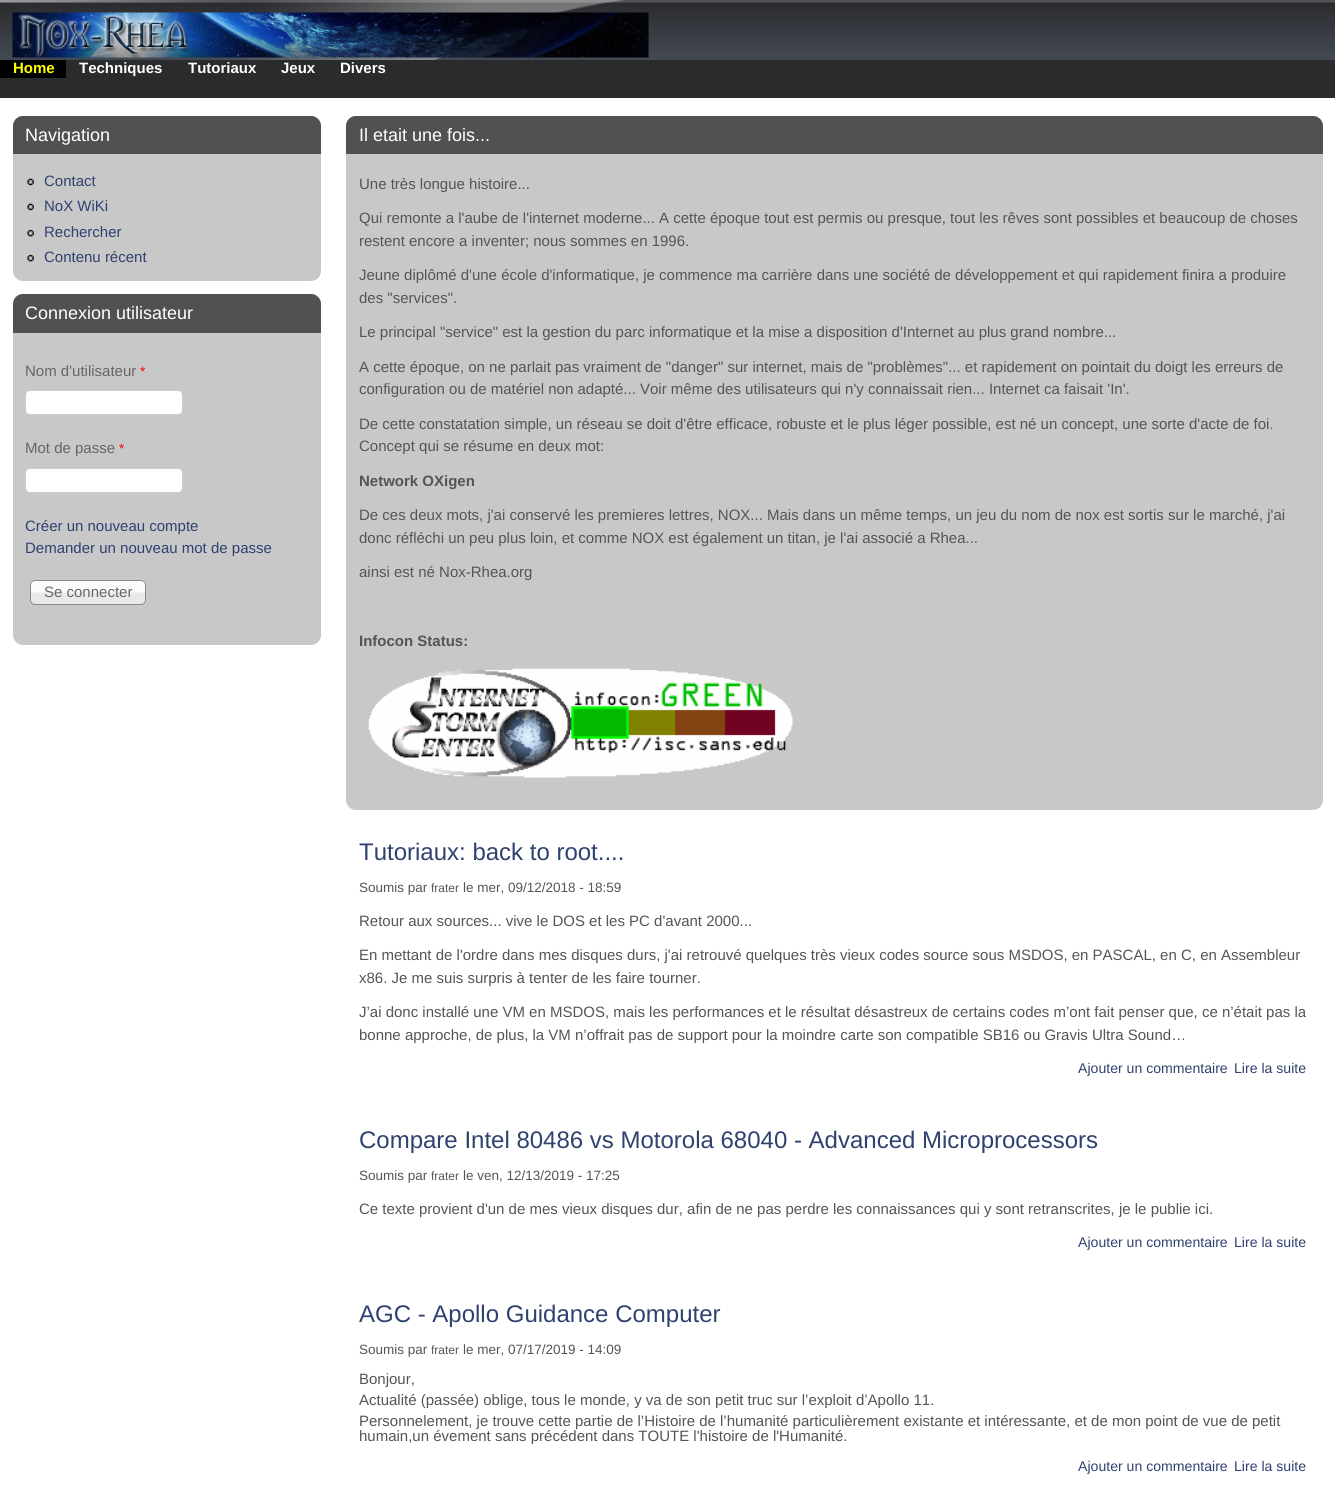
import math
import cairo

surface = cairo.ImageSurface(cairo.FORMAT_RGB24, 1335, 1504)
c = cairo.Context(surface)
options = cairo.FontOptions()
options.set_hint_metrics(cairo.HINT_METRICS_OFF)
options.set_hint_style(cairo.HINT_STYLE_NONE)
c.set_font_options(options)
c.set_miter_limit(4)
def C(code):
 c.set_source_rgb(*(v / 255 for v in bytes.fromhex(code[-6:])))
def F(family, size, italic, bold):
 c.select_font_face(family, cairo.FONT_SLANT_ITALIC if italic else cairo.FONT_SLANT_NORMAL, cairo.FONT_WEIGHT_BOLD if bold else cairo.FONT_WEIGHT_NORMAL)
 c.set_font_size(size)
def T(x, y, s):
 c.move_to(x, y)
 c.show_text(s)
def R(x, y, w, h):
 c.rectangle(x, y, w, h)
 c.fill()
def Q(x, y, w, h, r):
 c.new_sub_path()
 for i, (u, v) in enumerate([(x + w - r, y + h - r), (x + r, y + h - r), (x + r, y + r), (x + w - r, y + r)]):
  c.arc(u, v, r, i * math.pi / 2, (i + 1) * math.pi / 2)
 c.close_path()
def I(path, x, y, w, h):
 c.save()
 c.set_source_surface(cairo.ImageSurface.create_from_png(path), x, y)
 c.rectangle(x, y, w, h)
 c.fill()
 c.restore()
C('ffffff')
c.paint()
I('1.png',624,0,711,60)
I('2.png',0,0,624,60)
I('3.png',12,12,637,46)
C('2a2b2d')
R(0,60,1335,38)
C('000000')
R(0,60,66,18)
F('Liberation Sans',15,0,1)
C('ffff00')
T(13,73,'Home')
C('ffffff')
T(79,73,'Techniques')
T(188,73,'Tutoriaux')
T(281,73,'Jeux')
T(340,73,'Divers')
C('c8c8c9')
Q(13,116,308,165,10)
c.fill()
C('4f5152')
c.new_path()
c.move_to(23,116)
c.line_to(311,116)
c.curve_to(316.5,116,321,120.5,321,126)
c.line_to(321,154)
c.line_to(13,154)
c.line_to(13,126)
c.curve_to(13,120.5,17.5,116,23,116)
c.close_path()
c.fill()
F('Liberation Sans',18,0,0)
C('ffffff')
T(25,141,'Navigation')
I('4.png',27,178,7,8)
F('Liberation Sans',15,0,0)
C('2f416f')
T(44,186,'Contact')
I('4.png',27,203,7,8)
T(44,211,'NoX WiKi')
I('5.png',27,229,7,8)
T(44,237,'Rechercher')
I('5.png',27,254,7,8)
T(44,262,'Contenu récent')
C('c8c8c9')
Q(13,294,308,351,10)
c.fill()
C('4f5152')
c.new_path()
c.move_to(23,294)
c.line_to(311,294)
c.curve_to(316.5,294,321,298.5,321,304)
c.line_to(321,333)
c.line_to(13,333)
c.line_to(13,304)
c.curve_to(13,298.5,17.5,294,23,294)
c.close_path()
c.fill()
F('Liberation Sans',18,0,0)
C('ffffff')
T(25,319,'Connexion utilisateur')
F('Liberation Sans',15,0,0)
C('666666')
T(25,376,'Nom d\'utilisateur')
F('Liberation Sans',13.5,0,0)
C('ff0000')
T(140,376,'*')
C('ffffff')
Q(25.5,390.5,157,24,4.5)
c.fill_preserve()
C('cccccc')
c.set_line_width(1)
c.stroke()
F('Liberation Sans',15,0,0)
C('666666')
T(25,453,'Mot de passe')
F('Liberation Sans',13.5,0,0)
C('ff0000')
T(119,453,'*')
C('ffffff')
Q(25.5,468.5,157,24,4.5)
c.fill_preserve()
C('cccccc')
c.stroke()
F('Liberation Sans',15,0,0)
C('2f416f')
T(25,531,'Créer un nouveau compte')
T(25,553,'Demander un nouveau mot de passe')
I('6.png',30,580,116,25)
Q(30.5,580.5,115,24,4.5)
C('888888')
c.stroke()
C('666666')
T(44,597,'Se connecter')
C('c8c8c9')
Q(346,116,977,694,10)
c.fill()
C('4f5152')
c.new_path()
c.move_to(356,116)
c.line_to(1313,116)
c.curve_to(1318.5,116,1323,120.5,1323,126)
c.line_to(1323,154)
c.line_to(346,154)
c.line_to(346,126)
c.curve_to(346,120.5,350.5,116,356,116)
c.close_path()
c.fill()
F('Liberation Sans',18,0,0)
C('ffffff')
T(359,141,'Il etait une fois...')
F('Liberation Sans',15,0,0)
C('555555')
T(359,189,'Une très longue histoire...')
T(359,223,'Qui remonte a l\'aube de l\'internet moderne... A cette époque tout est permis ou presque, tout les rêves sont possibles et beaucoup de choses')
T(359,246,'restent encore a inventer; nous sommes en 1996.')
T(359,280,'Jeune diplômé d\'une école d\'informatique, je commence ma carrière dans une société de développement et qui rapidement finira a produire')
T(359,303,'des "services".')
T(359,337,'Le principal "service" est la gestion du parc informatique et la mise a disposition d\'Internet au plus grand nombre...')
T(359,372,'A cette époque, on ne parlait pas vraiment de "danger" sur internet, mais de "problèmes"... et rapidement on pointait du doigt les erreurs de')
T(359,394,'configuration ou de matériel non adapté... Voir même des utilisateurs qui n\'y connaissait rien... Internet ca faisait \'In\'.')
T(359,429,'De cette constatation simple, un réseau se doit d\'être efficace, robuste et le plus léger possible, est né un concept, une sorte d\'acte de foi.')
T(359,451,'Concept qui se résume en deux mot:')
F('Liberation Sans',15,0,1)
T(359,486,'Network OXigen')
F('Liberation Sans',15,0,0)
T(359,520,'De ces deux mots, j\'ai conservé les premieres lettres, NOX... Mais dans un même temps, un jeu du nom de nox est sortis sur le marché, j\'ai')
T(359,543,'donc réfléchi un peu plus loin, et comme NOX est également un titan, je l\'ai associé a Rhea...')
T(359,577,'ainsi est né Nox-Rhea.org')
F('Liberation Sans',15,0,1)
T(359,646,'Infocon Status:')
I('7.png',368,668,425,110)
F('Liberation Sans',24,0,0)
C('2f416f')
T(359,860,'Tutoriaux: back to root....')
F('Liberation Sans',13.5,0,0)
C('555555')
T(359,892,'Soumis par')
F('Liberation Sans',12,0,0)
T(431,892,'frater')
F('Liberation Sans',13.5,0,0)
T(463,892,'le mer, 09/12/2018 - 18:59')
F('Liberation Sans',15,0,0)
T(359,926,'Retour aux sources... vive le DOS et les PC d\'avant 2000...')
T(359,960,'En mettant de l\'ordre dans mes disques durs, j\'ai retrouvé quelques très vieux codes source sous MSDOS, en PASCAL, en C, en Assembleur')
T(359,983,'x86. Je me suis surpris à tenter de les faire tourner.')
T(359,1017,'J’ai donc installé une VM en MSDOS, mais les performances et le résultat désastreux de certains codes m’ont fait penser que, ce n’était pas la')
T(359,1040,'bonne approche, de plus, la VM n’offrait pas de support pour la moindre carte son compatible SB16 ou Gravis Ultra Sound…')
F('Liberation Sans',14.1,0,0)
C('2f416f')
T(1078,1073,'Ajouter un commentaire')
T(1234,1073,'Lire la suite')
F('Liberation Sans',24,0,0)
T(359,1148,'Compare Intel 80486 vs Motorola 68040 - Advanced Microprocessors')
F('Liberation Sans',13.5,0,0)
C('555555')
T(359,1180,'Soumis par')
F('Liberation Sans',12,0,0)
T(431,1180,'frater')
F('Liberation Sans',13.5,0,0)
T(463,1180,'le ven, 12/13/2019 - 17:25')
F('Liberation Sans',15,0,0)
T(359,1214,'Ce texte provient d\'un de mes vieux disques dur, afin de ne pas perdre les connaissances qui y sont retranscrites, je le publie ici.')
F('Liberation Sans',14.1,0,0)
C('2f416f')
T(1078,1247,'Ajouter un commentaire')
T(1234,1247,'Lire la suite')
F('Liberation Sans',24,0,0)
T(359,1322,'AGC - Apollo Guidance Computer')
F('Liberation Sans',13.5,0,0)
C('555555')
T(359,1354,'Soumis par')
F('Liberation Sans',12,0,0)
T(431,1354,'frater')
F('Liberation Sans',13.5,0,0)
T(463,1354,'le mer, 07/17/2019 - 14:09')
F('Liberation Sans',15,0,0)
T(359,1384,'Bonjour,')
T(359,1405,'Actualité (passée) oblige, tous le monde, y va de son petit truc sur l’exploit d’Apollo 11.')
T(359,1426,'Personnelement, je trouve cette partie de l’Histoire de l’humanité particulièrement existante et intéressante, et de mon point de vue de petit')
T(359,1441,'humain,un évement sans précédent dans TOUTE l\'histoire de l\'Humanité.')
F('Liberation Sans',14.1,0,0)
C('2f416f')
T(1078,1471,'Ajouter un commentaire')
T(1234,1471,'Lire la suite')
surface.write_to_png('o.png')
